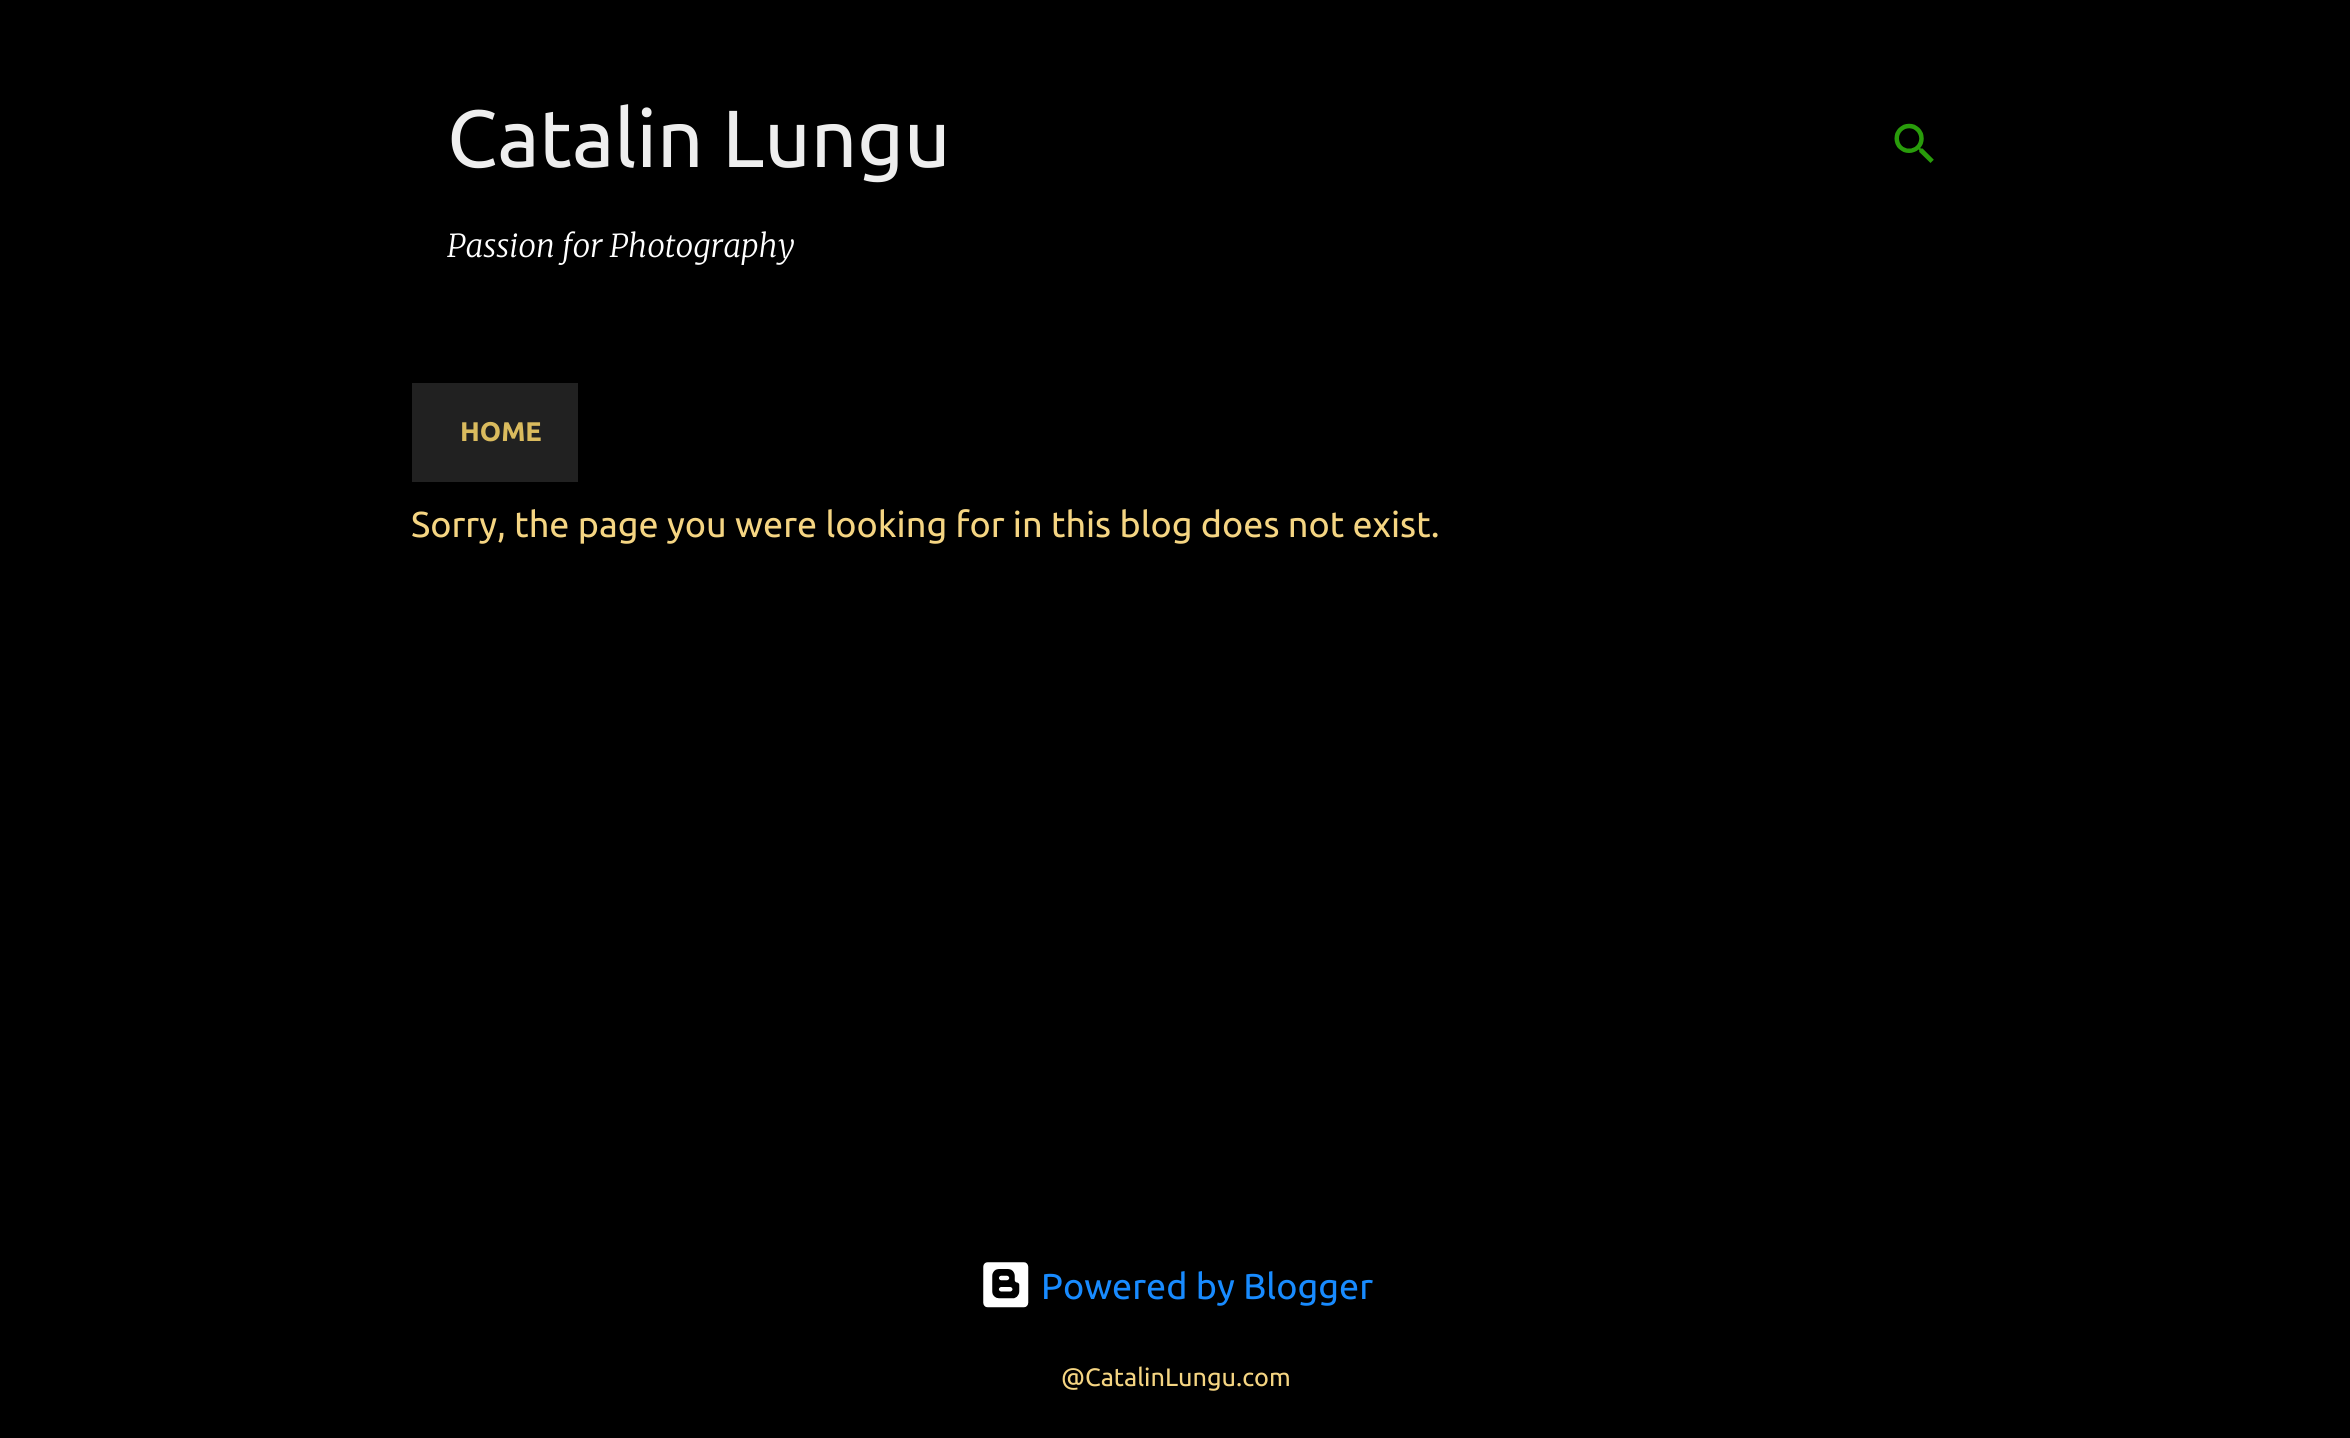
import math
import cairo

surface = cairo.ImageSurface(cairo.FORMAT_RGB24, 2350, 1438)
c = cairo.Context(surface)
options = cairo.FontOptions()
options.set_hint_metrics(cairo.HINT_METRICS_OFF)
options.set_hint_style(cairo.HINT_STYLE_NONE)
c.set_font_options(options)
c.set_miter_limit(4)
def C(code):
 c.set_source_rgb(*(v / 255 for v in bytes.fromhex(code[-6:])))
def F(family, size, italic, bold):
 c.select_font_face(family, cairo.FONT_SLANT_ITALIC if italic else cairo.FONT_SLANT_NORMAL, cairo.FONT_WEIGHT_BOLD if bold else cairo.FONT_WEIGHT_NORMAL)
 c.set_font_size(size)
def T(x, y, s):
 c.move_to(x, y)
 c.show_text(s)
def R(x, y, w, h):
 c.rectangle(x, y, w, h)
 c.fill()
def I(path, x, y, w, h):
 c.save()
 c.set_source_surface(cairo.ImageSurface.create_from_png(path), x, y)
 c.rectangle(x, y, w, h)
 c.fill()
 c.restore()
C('000000')
c.paint()
F('Ubuntu',81,0,0)
C('eeeeee')
T(447,167,'Catalin Lungu')
F('Merriweather Light',31.5,1,0)
C('ffffff')
T(447,257,'Passion for Photography')
I('1.png',1894,123,40,40)
C('212121')
R(412,383,166,99)
F('Ubuntu',27,0,1)
C('dabb5e')
T(460,441,'HOME')
F('Ubuntu',36,0,0)
C('f5d582')
T(411,537,'Sorry, the page you were looking for in this blog does not exist.')
I('2.png',983,1262,46,46)
C('188bff')
T(1041,1299,'Powered by Blogger')
F('Ubuntu',25.25,0,0)
C('f5d582')
T(1061,1386,'@CatalinLungu.com')
surface.write_to_png('o.png')
